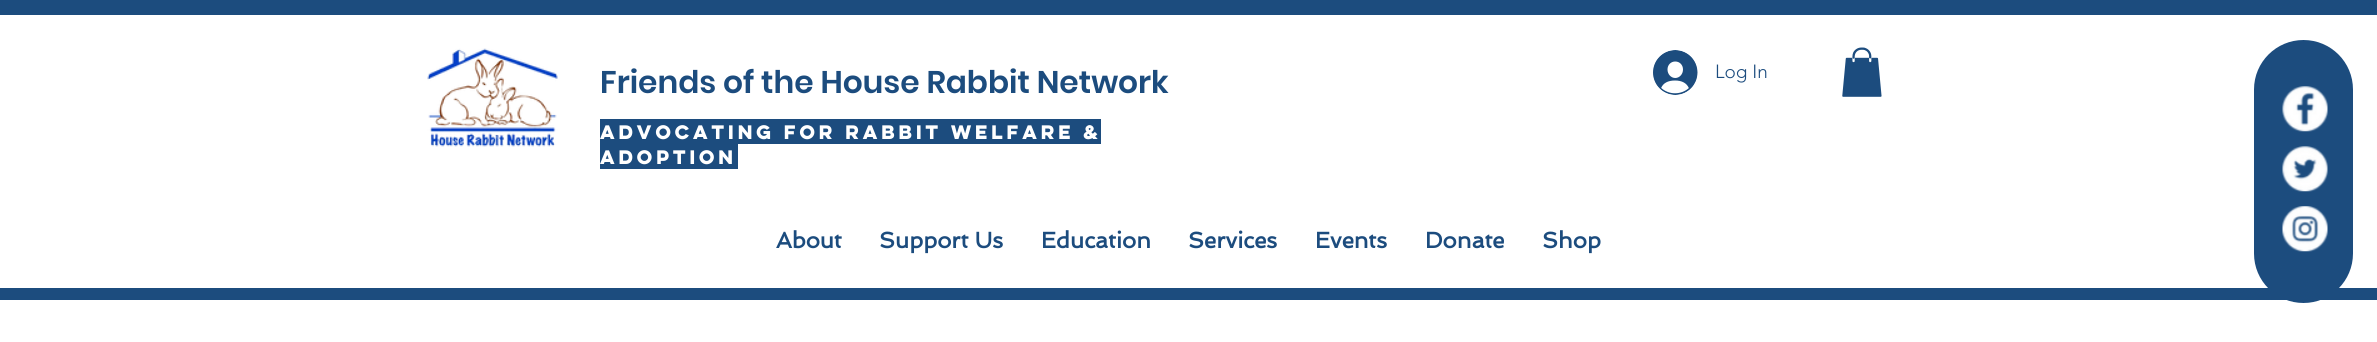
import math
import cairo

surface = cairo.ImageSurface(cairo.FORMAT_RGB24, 2377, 342)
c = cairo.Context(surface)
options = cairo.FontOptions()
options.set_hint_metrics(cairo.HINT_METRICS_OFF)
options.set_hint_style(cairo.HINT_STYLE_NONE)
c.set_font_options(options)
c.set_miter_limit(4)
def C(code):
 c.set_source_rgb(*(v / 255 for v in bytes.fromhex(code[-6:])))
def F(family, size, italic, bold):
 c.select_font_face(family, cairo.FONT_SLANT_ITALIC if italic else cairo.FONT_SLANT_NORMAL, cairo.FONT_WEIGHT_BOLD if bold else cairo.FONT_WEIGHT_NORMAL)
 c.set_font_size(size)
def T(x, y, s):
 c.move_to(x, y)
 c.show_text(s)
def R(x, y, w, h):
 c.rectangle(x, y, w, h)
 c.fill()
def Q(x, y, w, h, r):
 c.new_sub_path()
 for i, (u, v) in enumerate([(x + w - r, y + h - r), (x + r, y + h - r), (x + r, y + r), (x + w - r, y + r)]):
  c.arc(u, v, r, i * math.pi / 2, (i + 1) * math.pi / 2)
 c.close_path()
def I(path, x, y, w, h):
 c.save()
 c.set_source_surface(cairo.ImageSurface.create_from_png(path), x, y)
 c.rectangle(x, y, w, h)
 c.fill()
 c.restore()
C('ffffff')
c.paint()
C('1c4c7e')
R(0,0,2377,15)
I('1.png',427,48,131,99)
F('Poppins SemiBold',31.25,0,0)
T(600,93,'Friends of the House Rabbit Network')
I('2.png',1653,50,45,45)
F('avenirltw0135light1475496 Light',19,0,0)
T(1715,78,'Log In')
I('3.png',1842,47,40,50)
R(600,119,501,25)
F('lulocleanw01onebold',17.5,0,1)
C('ffffff')
T(600,139,'advocating for rabbit welfare &')
C('1c4c7e')
R(600,144,138,25)
C('ffffff')
T(600,164,'adoption')
F('Spinnaker',22.5,0,1)
C('1c4c7e')
T(776,248,'About')
T(879,248,'Support Us')
T(1041,248,'Education')
T(1188,248,'Services')
T(1315,248,'Events')
T(1425,248,'Donate')
T(1542,248,'Shop')
R(0,288,2377,12)
Q(2254,40,99,263,49.5)
c.fill()
I('4.png',2282,86,46,46)
I('5.png',2282,146,46,46)
I('6.png',2282,206,46,46)
surface.write_to_png('o.png')
